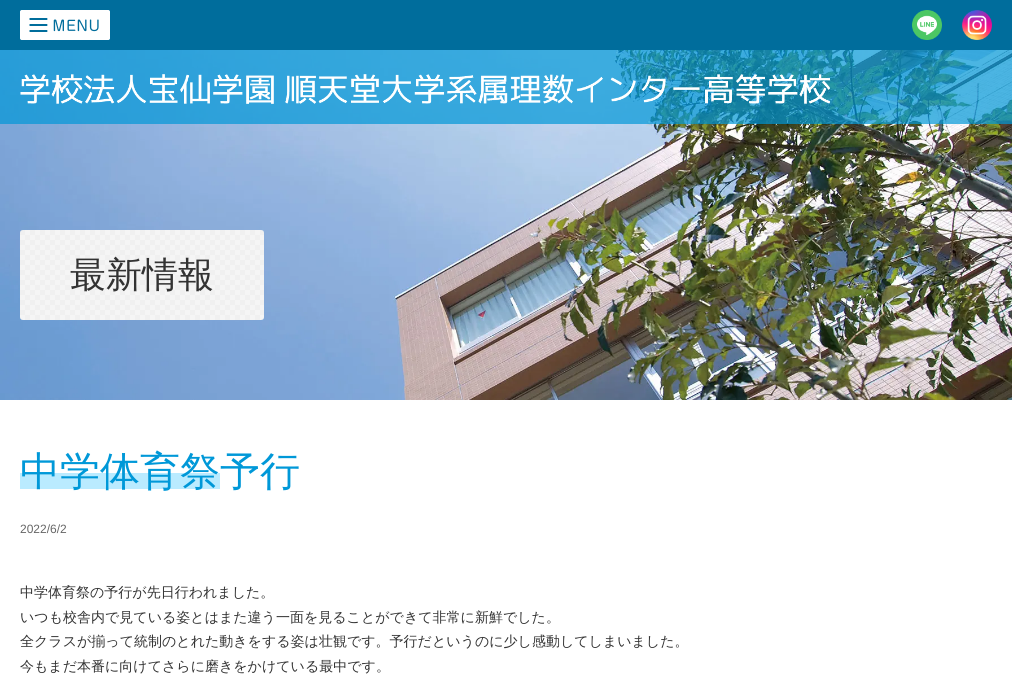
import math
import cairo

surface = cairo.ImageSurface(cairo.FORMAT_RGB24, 1012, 684)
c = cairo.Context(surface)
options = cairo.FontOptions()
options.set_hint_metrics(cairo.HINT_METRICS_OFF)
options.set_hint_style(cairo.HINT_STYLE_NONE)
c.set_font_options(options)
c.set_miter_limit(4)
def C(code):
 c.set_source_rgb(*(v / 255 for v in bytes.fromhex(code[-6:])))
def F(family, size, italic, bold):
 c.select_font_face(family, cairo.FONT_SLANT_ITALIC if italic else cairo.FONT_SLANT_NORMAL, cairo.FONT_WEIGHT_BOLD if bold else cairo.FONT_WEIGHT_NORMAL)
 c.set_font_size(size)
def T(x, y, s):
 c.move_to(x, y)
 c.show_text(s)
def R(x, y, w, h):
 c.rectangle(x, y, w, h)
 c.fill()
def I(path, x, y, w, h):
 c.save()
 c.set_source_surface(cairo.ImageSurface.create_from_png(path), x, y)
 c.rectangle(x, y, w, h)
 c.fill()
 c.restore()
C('ffffff')
c.paint()
C('006d9c')
R(0,0,1012,50)
I('1.png',20,10,90,30)
I('2.png',912,10,30,30)
I('3.png',962,10,30,30)
I('5.png',0,50,1012,350)
c.set_source_rgba(0,0.596,0.847,0.7)
R(0,50,1012,74)
I('4.png',20,74,810,30)
I('6.png',20,230,244,90)
F('WenQuanYi Zen Hei Medium',36,0,0)
C('333333')
T(70,287,'最新情報')
C('baebff')
R(20,473,200,16)
F('WenQuanYi Zen Hei Medium',40,0,0)
C('0098d8')
T(20,485,'中学体育祭予行')
F('Liberation Sans',12,0,0)
C('666666')
T(20,533,'2022/6/2')
F('WenQuanYi Zen Hei Medium',14,0,0)
C('333333')
T(20,597,'中学体育祭の予行が先日行われました。')
T(20,622,'いつも校舎内で見ている姿とはまた違う一面を見ることができて非常に新鮮でした。')
T(20,646,'全クラスが揃って統制のとれた動きをする姿は壮観です。予行だというのに少し感動してしまいました。')
T(20,671,'今もまだ本番に向けてさらに磨きをかけている最中です。')
surface.write_to_png('o.png')
